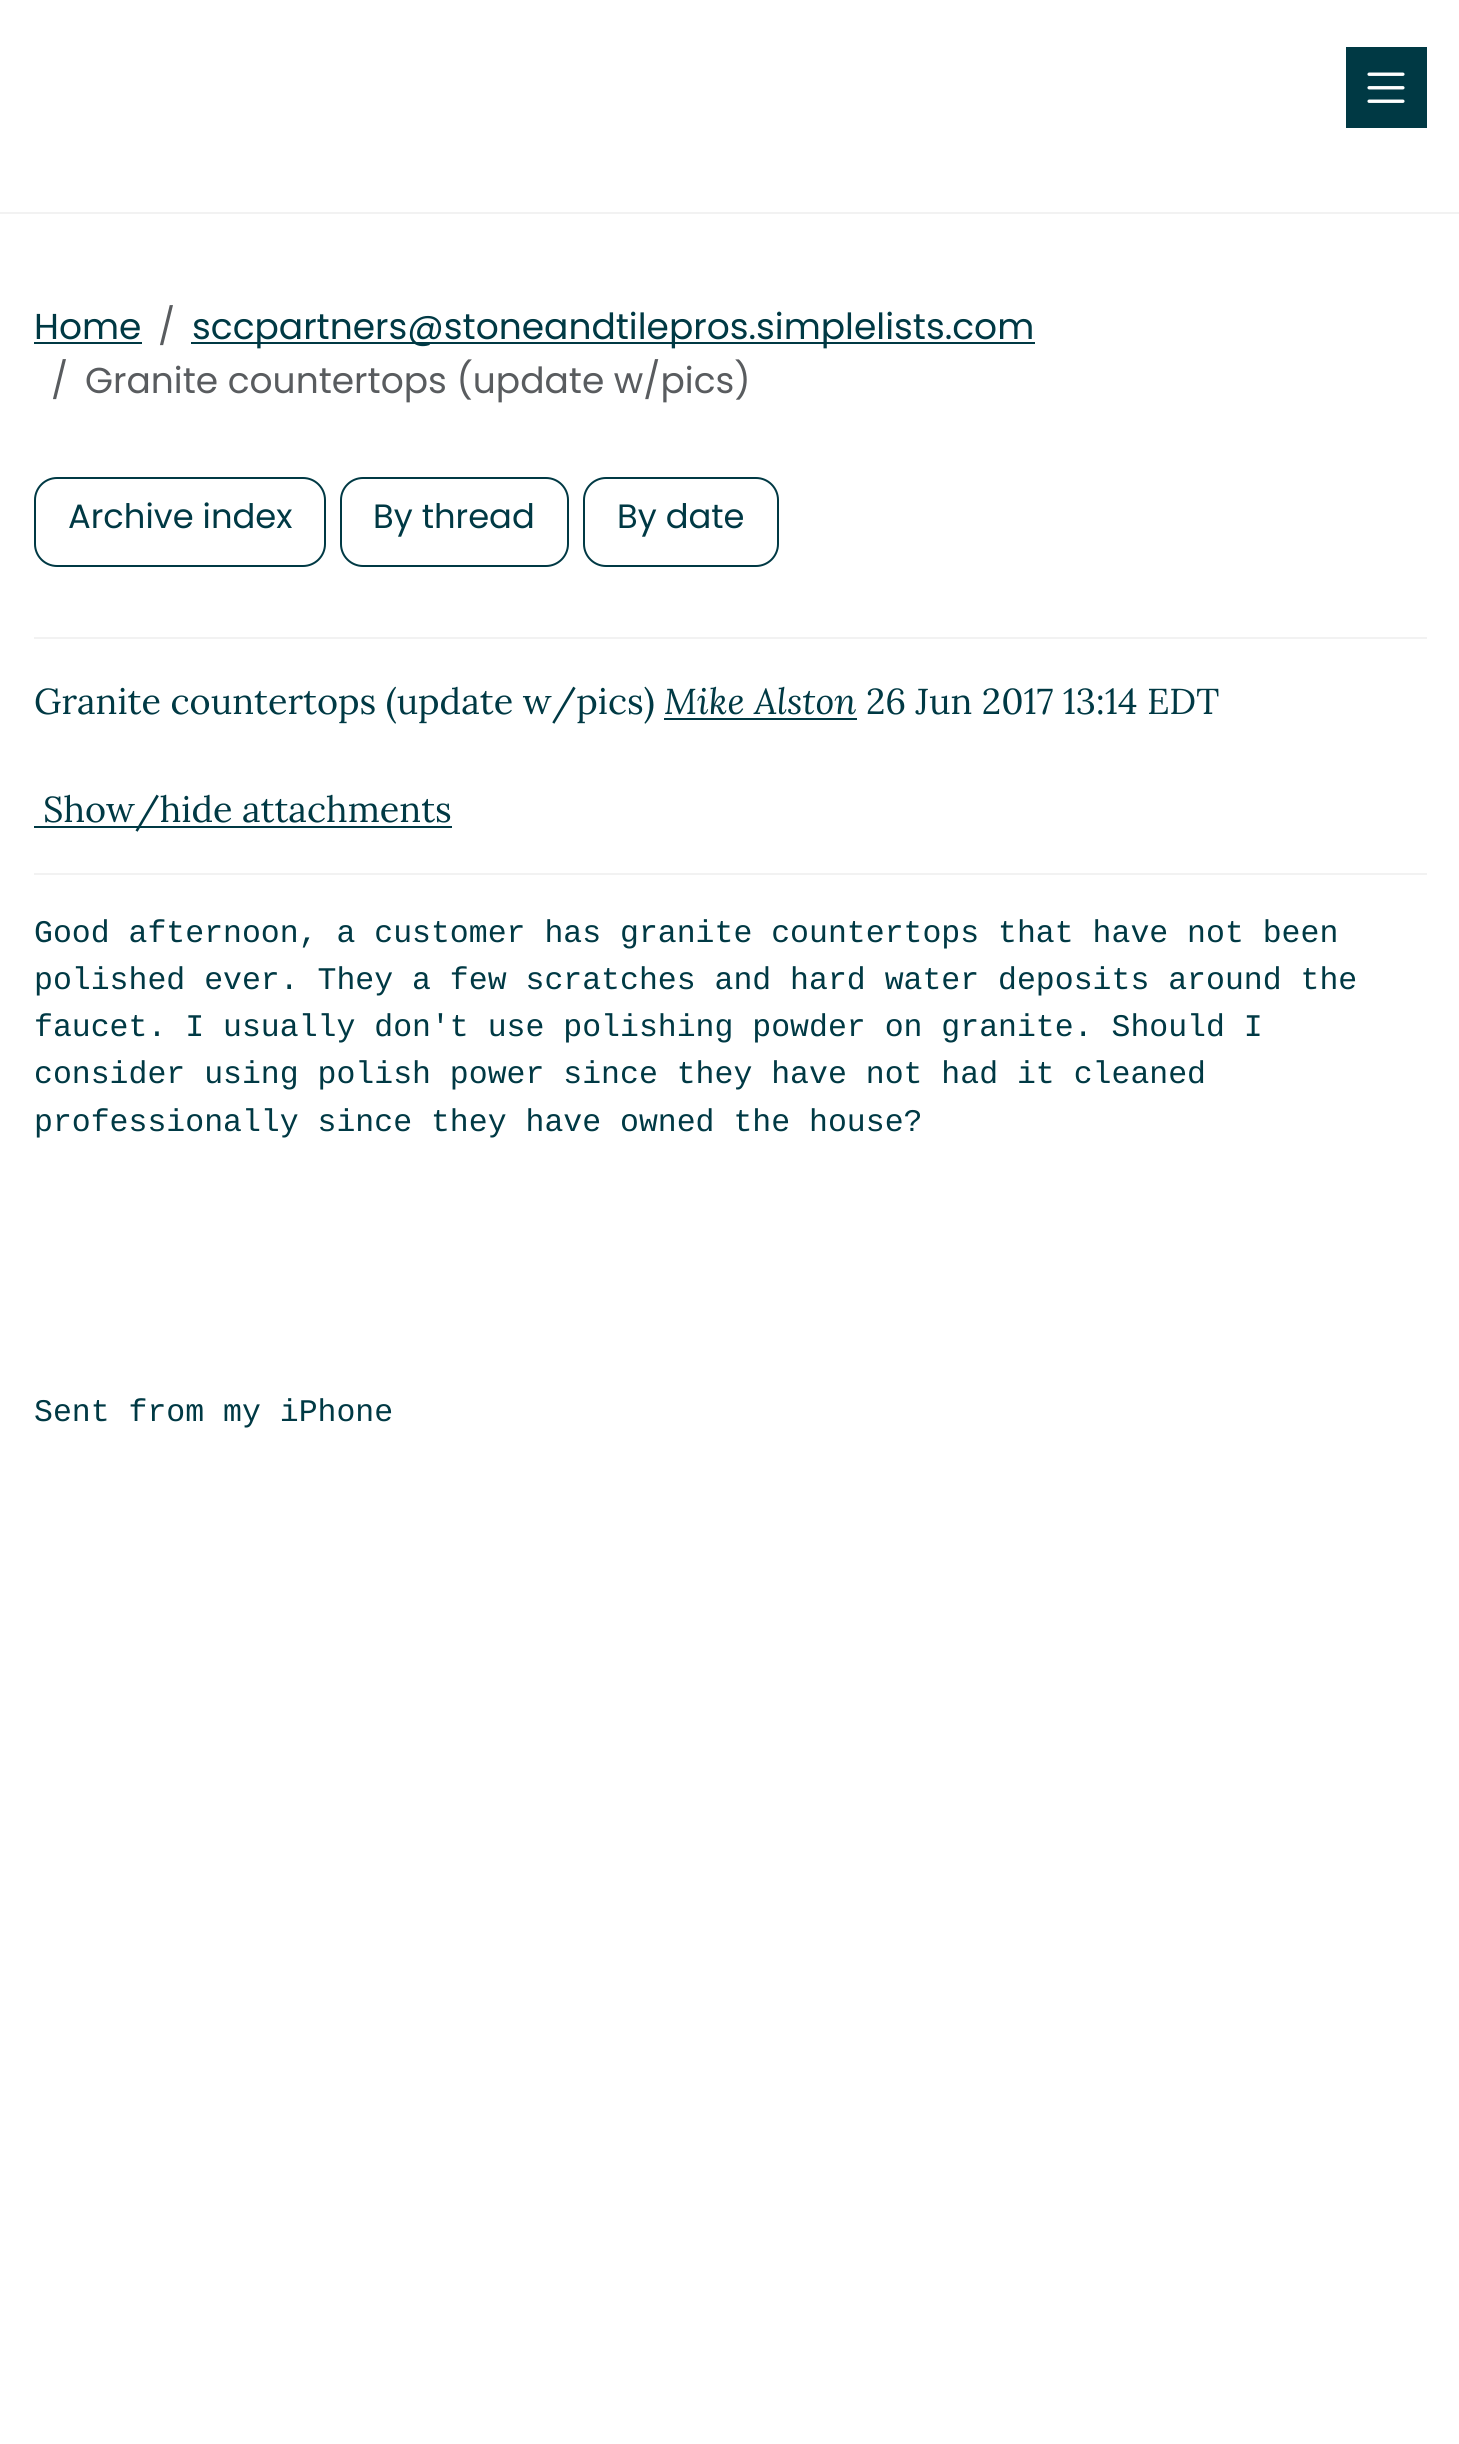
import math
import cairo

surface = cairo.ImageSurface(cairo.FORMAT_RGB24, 1459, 2444)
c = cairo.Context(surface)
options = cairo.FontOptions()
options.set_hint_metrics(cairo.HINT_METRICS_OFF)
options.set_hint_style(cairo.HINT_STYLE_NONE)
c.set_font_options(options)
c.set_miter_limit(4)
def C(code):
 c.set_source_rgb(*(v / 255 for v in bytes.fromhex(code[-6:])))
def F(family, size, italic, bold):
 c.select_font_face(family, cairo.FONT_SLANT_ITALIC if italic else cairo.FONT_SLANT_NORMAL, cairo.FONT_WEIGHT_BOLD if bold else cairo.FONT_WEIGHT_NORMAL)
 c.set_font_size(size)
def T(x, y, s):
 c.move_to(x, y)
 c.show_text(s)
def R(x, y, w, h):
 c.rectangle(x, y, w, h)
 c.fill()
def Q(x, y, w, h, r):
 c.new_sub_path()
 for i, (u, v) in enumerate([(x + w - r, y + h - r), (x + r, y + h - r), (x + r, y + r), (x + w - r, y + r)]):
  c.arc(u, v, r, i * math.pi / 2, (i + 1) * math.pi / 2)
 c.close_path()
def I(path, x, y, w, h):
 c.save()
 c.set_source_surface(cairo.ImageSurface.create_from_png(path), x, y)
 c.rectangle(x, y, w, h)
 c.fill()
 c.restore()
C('ffffff')
c.paint()
C('003944')
R(1346,47,81,81)
I('1.png',1367,72,38,31)
C('f2f2f2')
R(0,212,1459,2)
F('Poppins',36,0,0)
C('003944')
T(34,339,'Home')
R(34,342,108,2)
C('595c5f')
T(158,339,'/')
C('003944')
R(191,342,844,2)
T(192,339,'sccpartners@stoneandtilepros.simplelists.com')
C('595c5f')
T(51,393,'/')
T(85,393,'Granite countertops (update w/pics)')
Q(35,478,290,88,22)
C('003944')
c.stroke()
F('Poppins',33.75,0,0)
T(68,528,'Archive index')
Q(341,478,227,88,22)
c.stroke()
T(373,528,'By thread')
Q(584,478,194,88,22)
c.stroke()
T(617,528,'By date')
C('f2f2f2')
R(34,637,1393,2)
F('Lora',36,0,0)
C('003944')
T(34,714,'Granite countertops (update w/pics)')
F('Lora',36,1,0)
T(664,714,'Mike Alston')
R(664,718,193,2)
F('Lora',36,0,0)
T(866,714,'26 Jun 2017 13:14 EDT')
R(34,826,418,2)
T(43,822,'Show/hide attachments')
C('f2f2f2')
R(34,873,1393,2)
F('Liberation Mono',31.5,0,0)
C('003944')
T(34,942,'Good afternoon, a customer has granite countertops that have not been')
T(34,989,'polished ever. They a few scratches and hard water deposits around the')
T(34,1036,'faucet. I usually don\'t use polishing powder on granite. Should I')
T(34,1083,'consider using polish power since they have not had it cleaned')
T(34,1131,'professionally since they have owned the house?')
T(34,1421,'Sent from my iPhone')
surface.write_to_png('o.png')
